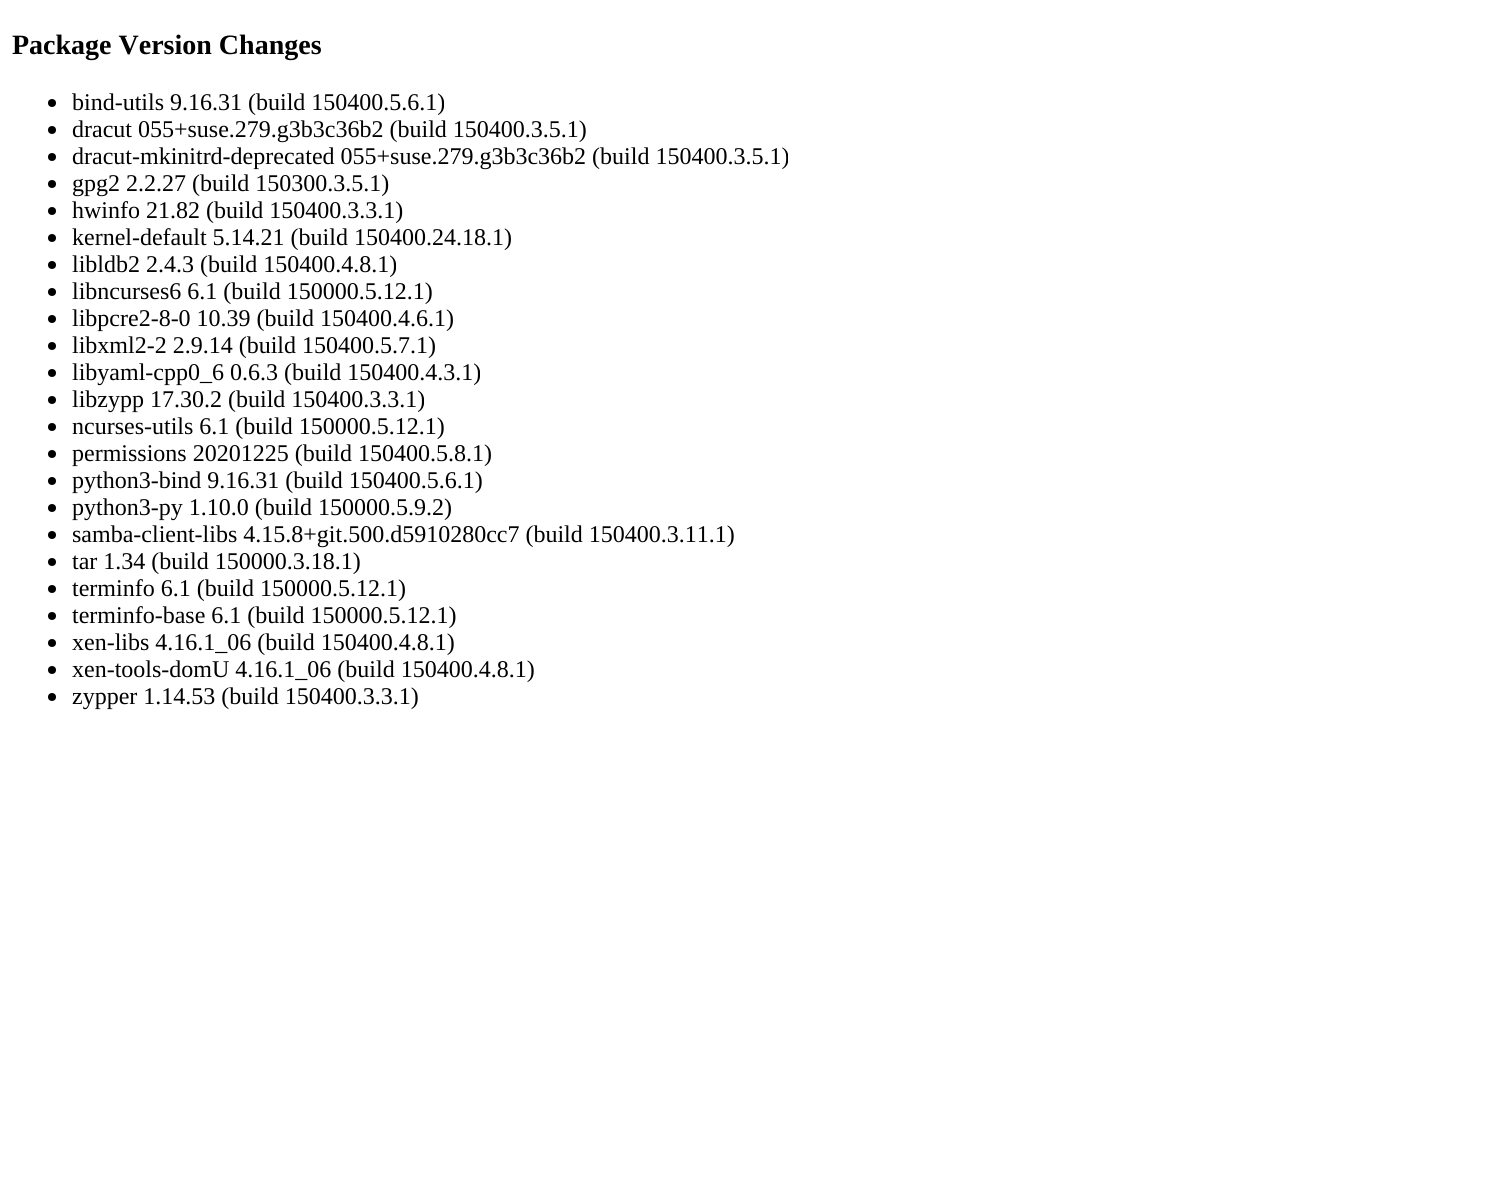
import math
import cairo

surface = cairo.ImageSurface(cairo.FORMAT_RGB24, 1503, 1182)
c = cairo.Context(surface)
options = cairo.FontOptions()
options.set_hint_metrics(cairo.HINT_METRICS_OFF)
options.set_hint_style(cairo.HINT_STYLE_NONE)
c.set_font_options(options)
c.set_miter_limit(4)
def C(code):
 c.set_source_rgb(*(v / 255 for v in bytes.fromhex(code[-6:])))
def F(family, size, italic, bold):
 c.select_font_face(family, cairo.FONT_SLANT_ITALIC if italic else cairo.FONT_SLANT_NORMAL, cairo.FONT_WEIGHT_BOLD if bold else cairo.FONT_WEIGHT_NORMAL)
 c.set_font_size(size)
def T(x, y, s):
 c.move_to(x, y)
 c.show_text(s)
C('ffffff')
c.paint()
F('Liberation Serif',28,0,1)
C('000000')
T(12,54,'Package Version Changes')
c.new_path()
c.arc(52,103,4,0,2 * math.pi)
c.fill()
F('Liberation Serif',24,0,0)
T(72,110,'bind-utils 9.16.31 (build 150400.5.6.1)')
c.new_path()
c.arc(52,130,4,0,2 * math.pi)
c.fill()
T(72,137,'dracut 055+suse.279.g3b3c36b2 (build 150400.3.5.1)')
c.new_path()
c.arc(52,157,4,0,2 * math.pi)
c.fill()
T(72,164,'dracut-mkinitrd-deprecated 055+suse.279.g3b3c36b2 (build 150400.3.5.1)')
c.new_path()
c.arc(52,184,4,0,2 * math.pi)
c.fill()
T(72,191,'gpg2 2.2.27 (build 150300.3.5.1)')
c.new_path()
c.arc(52,211,4,0,2 * math.pi)
c.fill()
T(72,218,'hwinfo 21.82 (build 150400.3.3.1)')
c.new_path()
c.arc(52,238,4,0,2 * math.pi)
c.fill()
T(72,245,'kernel-default 5.14.21 (build 150400.24.18.1)')
c.new_path()
c.arc(52,265,4,0,2 * math.pi)
c.fill()
T(72,272,'libldb2 2.4.3 (build 150400.4.8.1)')
c.new_path()
c.arc(52,292,4,0,2 * math.pi)
c.fill()
T(72,299,'libncurses6 6.1 (build 150000.5.12.1)')
c.new_path()
c.arc(52,319,4,0,2 * math.pi)
c.fill()
T(72,326,'libpcre2-8-0 10.39 (build 150400.4.6.1)')
c.new_path()
c.arc(52,346,4,0,2 * math.pi)
c.fill()
T(72,353,'libxml2-2 2.9.14 (build 150400.5.7.1)')
c.new_path()
c.arc(52,373,4,0,2 * math.pi)
c.fill()
T(72,380,'libyaml-cpp0_6 0.6.3 (build 150400.4.3.1)')
c.new_path()
c.arc(52,400,4,0,2 * math.pi)
c.fill()
T(72,407,'libzypp 17.30.2 (build 150400.3.3.1)')
c.new_path()
c.arc(52,427,4,0,2 * math.pi)
c.fill()
T(72,434,'ncurses-utils 6.1 (build 150000.5.12.1)')
c.new_path()
c.arc(52,454,4,0,2 * math.pi)
c.fill()
T(72,461,'permissions 20201225 (build 150400.5.8.1)')
c.new_path()
c.arc(52,481,4,0,2 * math.pi)
c.fill()
T(72,488,'python3-bind 9.16.31 (build 150400.5.6.1)')
c.new_path()
c.arc(52,508,4,0,2 * math.pi)
c.fill()
T(72,515,'python3-py 1.10.0 (build 150000.5.9.2)')
c.new_path()
c.arc(52,535,4,0,2 * math.pi)
c.fill()
T(72,542,'samba-client-libs 4.15.8+git.500.d5910280cc7 (build 150400.3.11.1)')
c.new_path()
c.arc(52,562,4,0,2 * math.pi)
c.fill()
T(72,569,'tar 1.34 (build 150000.3.18.1)')
c.new_path()
c.arc(52,589,4,0,2 * math.pi)
c.fill()
T(72,596,'terminfo 6.1 (build 150000.5.12.1)')
c.new_path()
c.arc(52,616,4,0,2 * math.pi)
c.fill()
T(72,623,'terminfo-base 6.1 (build 150000.5.12.1)')
c.new_path()
c.arc(52,643,4,0,2 * math.pi)
c.fill()
T(72,650,'xen-libs 4.16.1_06 (build 150400.4.8.1)')
c.new_path()
c.arc(52,670,4,0,2 * math.pi)
c.fill()
T(72,677,'xen-tools-domU 4.16.1_06 (build 150400.4.8.1)')
c.new_path()
c.arc(52,697,4,0,2 * math.pi)
c.fill()
T(72,704,'zypper 1.14.53 (build 150400.3.3.1)')
surface.write_to_png('o.png')
